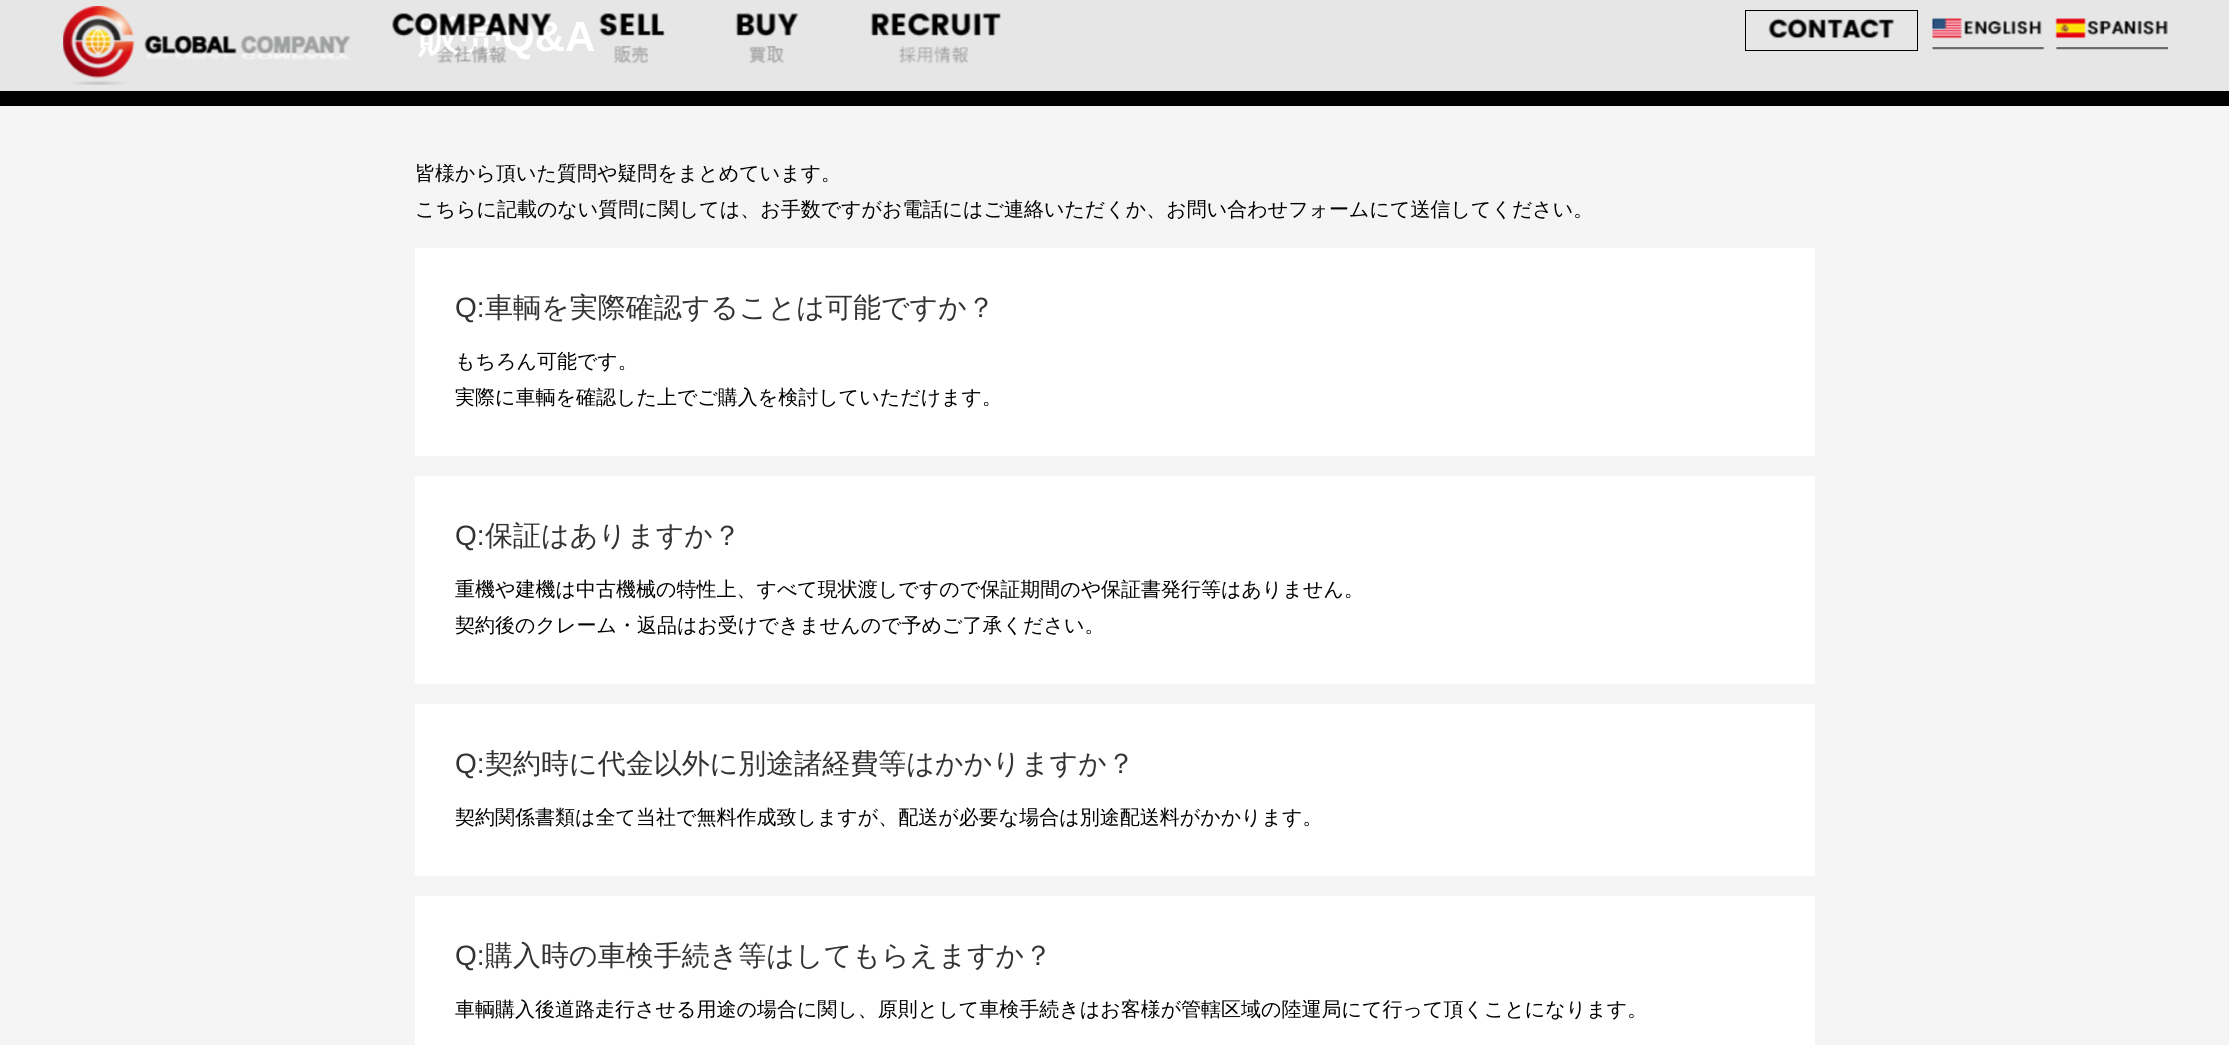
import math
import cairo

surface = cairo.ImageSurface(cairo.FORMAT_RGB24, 2229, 1045)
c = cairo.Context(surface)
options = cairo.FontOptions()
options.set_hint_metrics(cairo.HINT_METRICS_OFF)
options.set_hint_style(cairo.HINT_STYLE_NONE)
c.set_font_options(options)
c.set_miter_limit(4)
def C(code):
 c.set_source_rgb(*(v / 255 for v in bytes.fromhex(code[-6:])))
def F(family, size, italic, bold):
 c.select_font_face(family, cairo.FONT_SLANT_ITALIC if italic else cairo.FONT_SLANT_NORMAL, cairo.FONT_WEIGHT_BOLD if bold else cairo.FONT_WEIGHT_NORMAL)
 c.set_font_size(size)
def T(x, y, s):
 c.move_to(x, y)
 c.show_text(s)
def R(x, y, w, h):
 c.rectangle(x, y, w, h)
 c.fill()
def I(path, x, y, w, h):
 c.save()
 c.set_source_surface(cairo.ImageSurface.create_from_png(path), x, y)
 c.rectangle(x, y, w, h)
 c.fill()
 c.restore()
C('f5f5f5')
c.paint()
C('e6e6e6')
R(0,0,2229,91)
I('1.png',63,6,288,79)
F('WenQuanYi Zen Hei',42,0,1)
C('ffffff')
T(418,51,'販売')
F('Liberation Sans',42,0,1)
T(502,51,'Q&A')
I('2.png',392,13,160,51)
I('3.png',599,13,66,51)
I('4.png',735,13,64,51)
I('5.png',870,13,131,51)
c.rectangle(1745.5,10.5,172,40)
C('000000')
c.set_line_width(1)
c.stroke()
I('6.png',1768,18,127,21)
I('7.png',1932,18,113,32)
I('8.png',2055,18,113,32)
R(0,91,2229,15)
F('WenQuanYi Zen Hei Medium',20,0,0)
T(415,180,'皆様から頂いた質問や疑問をまとめています。')
T(415,216,'こちらに記載のない質問に関しては、お手数ですがお電話にはご連絡いただくか、お問い合わせフォームにて送信してください。')
C('ffffff')
R(415,248,1400,208)
F('Liberation Sans',28,0,0)
C('333333')
T(455,317,'Q:')
F('WenQuanYi Zen Hei Medium',28,0,0)
T(485,317,'車輌を実際確認することは可能ですか？')
F('WenQuanYi Zen Hei Medium',20,0,0)
C('000000')
T(455,368,'もちろん可能です。')
T(455,404,'実際に車輌を確認した上でご購入を検討していただけます。')
C('ffffff')
R(415,476,1400,208)
F('Liberation Sans',28,0,0)
C('333333')
T(455,545,'Q:')
F('WenQuanYi Zen Hei Medium',28,0,0)
T(485,545,'保証はありますか？')
F('WenQuanYi Zen Hei Medium',20,0,0)
C('000000')
T(455,596,'重機や建機は中古機械の特性上、すべて現状渡しですので保証期間のや保証書発行等はありません。')
T(455,632,'契約後のクレーム・返品はお受けできませんので予めご了承ください。')
C('ffffff')
R(415,704,1400,172)
F('Liberation Sans',28,0,0)
C('333333')
T(455,773,'Q:')
F('WenQuanYi Zen Hei Medium',28,0,0)
T(485,773,'契約時に代金以外に別途諸経費等はかかりますか？')
F('WenQuanYi Zen Hei Medium',20,0,0)
C('000000')
T(455,824,'契約関係書類は全て当社で無料作成致しますが、配送が必要な場合は別途配送料がかかります。')
C('ffffff')
R(415,896,1400,149)
F('Liberation Sans',28,0,0)
C('333333')
T(455,965,'Q:')
F('WenQuanYi Zen Hei Medium',28,0,0)
T(485,965,'購入時の車検手続き等はしてもらえますか？')
F('WenQuanYi Zen Hei Medium',20,0,0)
C('000000')
T(455,1016,'車輌購入後道路走行させる用途の場合に関し、原則として車検手続きはお客様が管轄区域の陸運局にて行って頂くことになります。')
surface.write_to_png('o.png')
